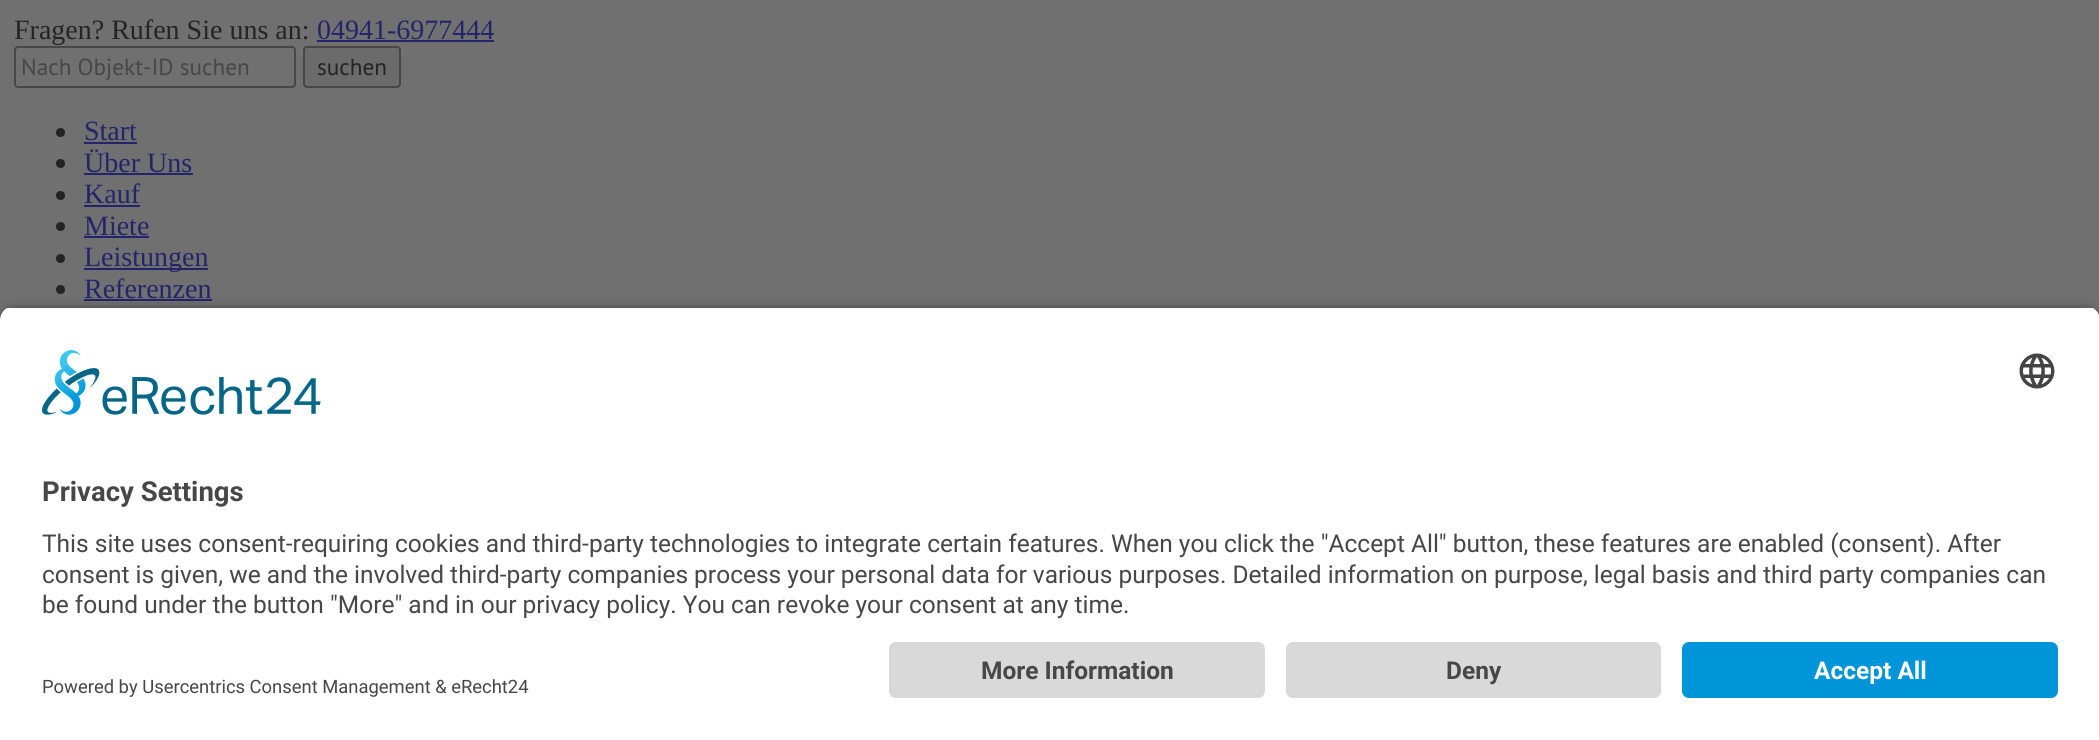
import math
import cairo

surface = cairo.ImageSurface(cairo.FORMAT_RGB24, 2099, 740)
c = cairo.Context(surface)
options = cairo.FontOptions()
options.set_hint_metrics(cairo.HINT_METRICS_OFF)
options.set_hint_style(cairo.HINT_STYLE_NONE)
c.set_font_options(options)
c.set_miter_limit(4)
def C(code):
 c.set_source_rgb(*(v / 255 for v in bytes.fromhex(code[-6:])))
def F(family, size, italic, bold):
 c.select_font_face(family, cairo.FONT_SLANT_ITALIC if italic else cairo.FONT_SLANT_NORMAL, cairo.FONT_WEIGHT_BOLD if bold else cairo.FONT_WEIGHT_NORMAL)
 c.set_font_size(size)
def T(x, y, s):
 c.move_to(x, y)
 c.show_text(s)
def R(x, y, w, h):
 c.rectangle(x, y, w, h)
 c.fill()
def Q(x, y, w, h, r):
 c.new_sub_path()
 for i, (u, v) in enumerate([(x + w - r, y + h - r), (x + r, y + h - r), (x + r, y + r), (x + w - r, y + r)]):
  c.arc(u, v, r, i * math.pi / 2, (i + 1) * math.pi / 2)
 c.close_path()
def S(x, y, w, h, r, blur, alpha):
 c.push_group_with_content(cairo.CONTENT_ALPHA)
 c.set_operator(cairo.OPERATOR_SOURCE)
 for i in range(15, -16, -2):
  e = blur * i / 6
  if min(w, h) + 2 * e > 0:
   c.set_source_rgba(0, 0, 0, alpha * math.erfc((i - 1) / 8.5) / 2)
   Q(x - e, y - e, w + 2 * e, h + 2 * e, max(0, min(r + e + blur * .6, min(w, h) / 2 + e)))
   c.fill()
 c.mask(c.pop_group())
def I(path, x, y, w, h):
 c.save()
 c.set_source_surface(cairo.ImageSurface.create_from_png(path), x, y)
 c.rectangle(x, y, w, h)
 c.fill()
 c.restore()
C('707070')
c.paint()
F('Liberation Serif',28,0,0)
C('242424')
T(14,39,'Fragen? Rufen Sie uns an:')
C('24246b')
T(317,39,'04941-6977444')
R(317,40,177,2)
Q(15,47,280,40,3)
C('474747')
c.stroke()
F('PT Sans',23.25,0,0)
T(21,75,'Nach Objekt-ID suchen')
C('6b6b6b')
Q(304,47,96,40,3)
c.fill_preserve()
C('474747')
c.stroke()
C('242424')
T(317,75,'suchen')
c.new_path()
c.arc(60.5,132.5,4.5,0,2 * math.pi)
c.fill()
F('Liberation Serif',28,0,0)
C('24246b')
T(84,140,'Start')
R(84,142,53,2)
C('242424')
c.new_path()
c.arc(60.5,163.5,4.5,0,2 * math.pi)
c.fill()
C('24246b')
T(84,172,'Über Uns')
R(84,173,109,2)
C('242424')
c.new_path()
c.arc(60.5,195.5,4.5,0,2 * math.pi)
c.fill()
C('24246b')
T(84,203,'Kauf')
R(84,205,56,2)
C('242424')
c.new_path()
c.arc(60.5,226.5,4.5,0,2 * math.pi)
c.fill()
C('24246b')
T(84,235,'Miete')
R(84,236,65,2)
C('242424')
c.new_path()
c.arc(60.5,258.5,4.5,0,2 * math.pi)
c.fill()
C('24246b')
R(84,268,124,2)
T(84,266,'Leistungen')
C('242424')
c.new_path()
c.arc(60.5,289.5,4.5,0,2 * math.pi)
c.fill()
C('24246b')
T(84,298,'Referenzen')
R(84,299,128,2)
C('000000')
S(0,312,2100,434,14,6,.8)
c.save()
c.new_path()
c.move_to(14,306)
c.line_to(2086,306)
c.curve_to(2093.5,306,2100,312.5,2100,320)
c.line_to(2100,628)
c.line_to(0,628)
c.line_to(0,320)
c.curve_to(0,312.5,6.5,306,14,306)
c.close_path()
c.clip()
C('ffffff')
R(0,308,2099,320)
c.restore()
I('1.png',42,350,279,65)
I('2.png',2019,353,36,36)
F('Roboto',27.5,0,1)
C('474747')
T(42,501,'Privacy Settings')
F('Roboto',24.5,0,0)
T(42,552,'This site uses consent-requiring cookies and third-party technologies to integrate certain features. When you click the "Accept All" button, these features are enabled (consent). After')
T(42,583,'consent is given, we and the involved third-party companies process your personal data for various purposes. Detailed information on purpose, legal basis and third party companies can')
T(42,613,'be found under the button "More" and in our privacy policy. You can revoke your consent at any time.')
C('ffffff')
R(0,628,2099,112)
C('d9d9d9')
Q(889,642,376,56,7)
c.fill()
F('Roboto',24.5,0,1)
C('474747')
T(981,679,'More Information')
C('d9d9d9')
Q(1286,642,375,56,7)
c.fill()
C('474747')
T(1446,679,'Deny')
C('0094d8')
Q(1682,642,376,56,7)
c.fill()
C('ffffff')
T(1814,679,'Accept All')
F('Roboto',18.4,0,0)
C('474747')
T(42,693,'Powered by Usercentrics Consent Management & eRecht24')
surface.write_to_png('o.png')
